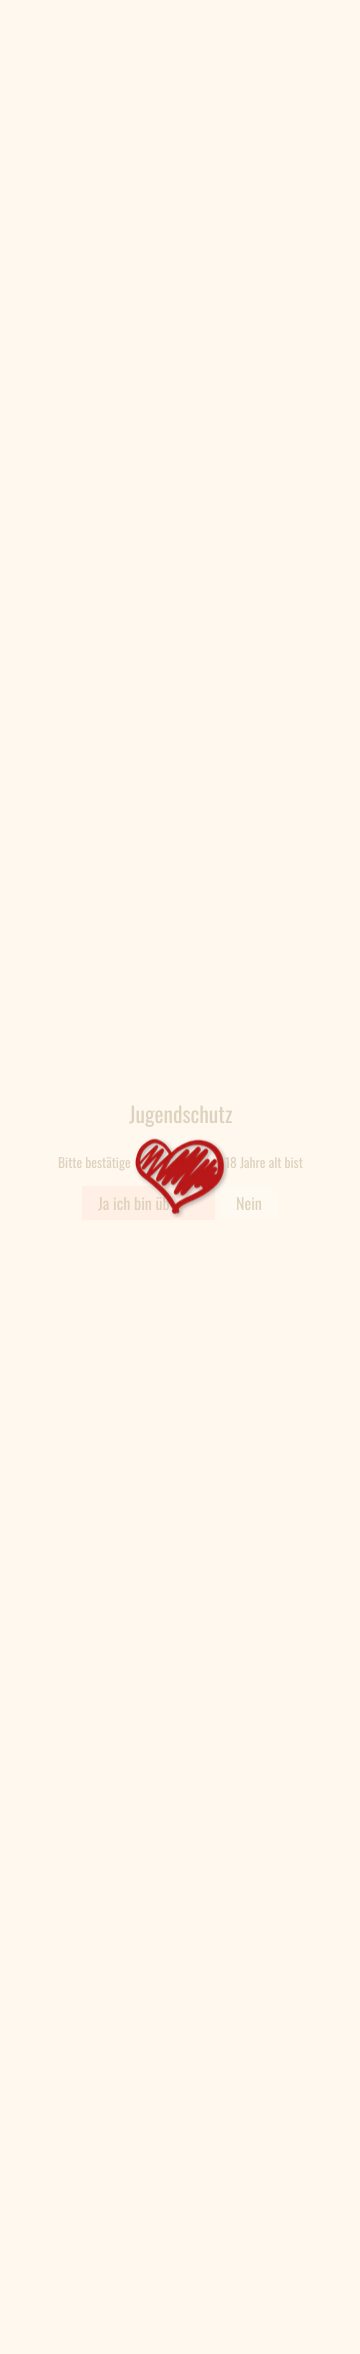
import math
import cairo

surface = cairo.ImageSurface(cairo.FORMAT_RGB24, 360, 2354)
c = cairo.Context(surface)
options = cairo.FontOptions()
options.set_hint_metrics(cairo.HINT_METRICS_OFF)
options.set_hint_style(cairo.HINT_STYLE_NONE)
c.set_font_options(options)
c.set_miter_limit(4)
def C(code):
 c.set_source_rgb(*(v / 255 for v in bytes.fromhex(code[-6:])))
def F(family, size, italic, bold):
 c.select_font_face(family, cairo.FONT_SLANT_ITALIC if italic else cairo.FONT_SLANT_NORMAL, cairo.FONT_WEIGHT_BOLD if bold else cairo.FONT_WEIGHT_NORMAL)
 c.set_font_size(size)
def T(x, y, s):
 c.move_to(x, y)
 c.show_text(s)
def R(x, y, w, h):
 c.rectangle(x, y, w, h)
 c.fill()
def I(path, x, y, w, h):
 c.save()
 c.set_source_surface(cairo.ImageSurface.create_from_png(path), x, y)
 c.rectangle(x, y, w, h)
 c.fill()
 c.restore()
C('fff8ee')
c.paint()
F('Oswald',21.5,0,0)
C('ded2be')
T(129,1123,'Jugendschutz')
F('Oswald',13.5,0,0)
T(58,1168,'Bitte bestätige')
T(225,1168,'18 Jahre alt bist')
C('ffefe5')
R(82,1186,133,34)
F('Oswald',16,0,0)
C('ded2be')
T(98,1210,'Ja ich bin üb')
C('fffaf1')
R(220,1186,58,34)
C('ded2be')
T(236,1210,'Nein')
I('1.png',133,1138,96,80)
surface.write_to_png('o.png')
